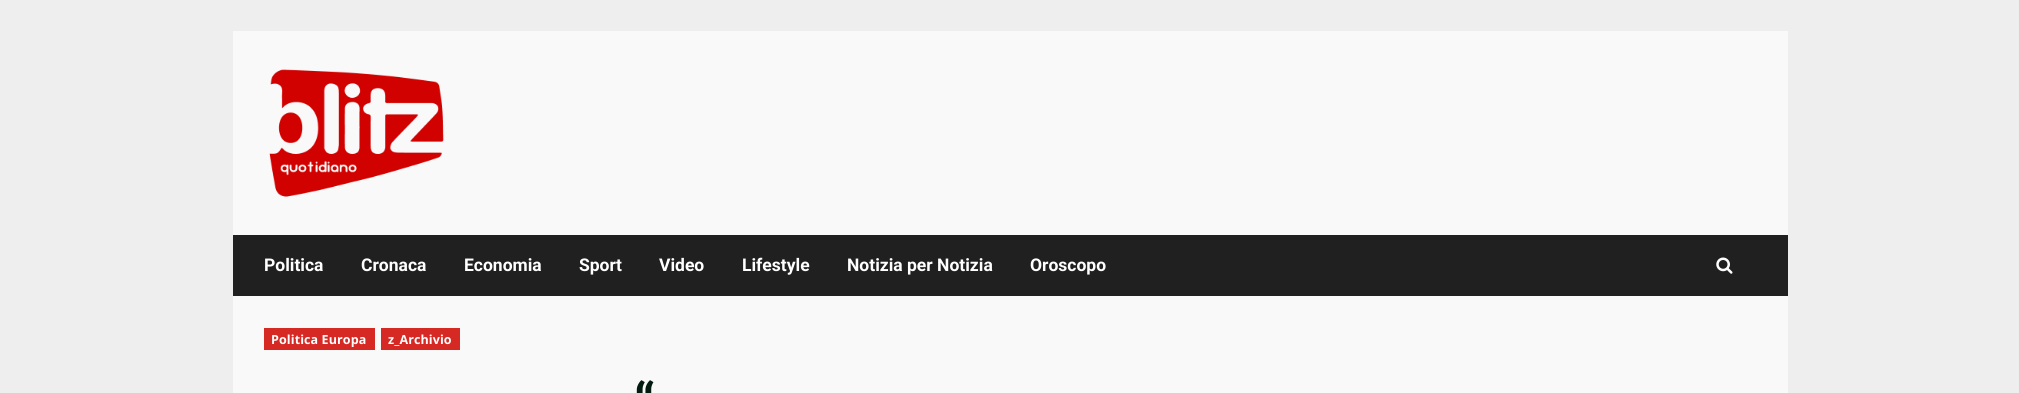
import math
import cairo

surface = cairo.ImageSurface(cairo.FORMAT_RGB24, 2019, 393)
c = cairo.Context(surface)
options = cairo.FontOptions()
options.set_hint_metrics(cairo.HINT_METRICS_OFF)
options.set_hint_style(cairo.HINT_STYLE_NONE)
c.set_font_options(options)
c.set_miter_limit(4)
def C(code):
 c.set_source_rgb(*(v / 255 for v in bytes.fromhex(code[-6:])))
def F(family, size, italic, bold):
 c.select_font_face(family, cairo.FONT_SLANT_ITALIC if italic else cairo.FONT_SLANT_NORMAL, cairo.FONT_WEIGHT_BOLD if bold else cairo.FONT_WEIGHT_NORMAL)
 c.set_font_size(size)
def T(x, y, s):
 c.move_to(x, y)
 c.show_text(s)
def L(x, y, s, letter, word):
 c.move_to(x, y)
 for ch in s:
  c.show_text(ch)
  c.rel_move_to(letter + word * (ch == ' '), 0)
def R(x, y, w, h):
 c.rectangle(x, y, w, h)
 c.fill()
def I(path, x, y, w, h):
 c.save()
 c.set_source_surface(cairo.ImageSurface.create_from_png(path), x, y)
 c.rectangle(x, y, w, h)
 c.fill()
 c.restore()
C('eeeeee')
c.paint()
C('f9f9f9')
R(233,31,1555,362)
I('1.png',269,69,175,128)
C('202020')
R(233,235,1555,61)
F('Roboto',17.5,0,1)
C('ffffff')
T(264,271,'Politica')
T(361,271,'Cronaca')
T(464,271,'Economia')
T(579,271,'Sport')
T(659,271,'Video')
T(742,271,'Lifestyle')
T(847,271,'Notizia per Notizia')
T(1030,271,'Oroscopo')
I('2.png',1716,257,17,17)
C('d72924')
R(264,328,111,22)
F('Open Sans',12.5,0,1)
C('ffffff')
L(271,344,'Politica Europa',.1,0)
C('d72924')
R(381,328,79,22)
C('ffffff')
L(388,344,'z_Archivio',.1,0)
F('Roboto',52,0,1)
C('031b11')
T(634,420,'“')
surface.write_to_png('o.png')
